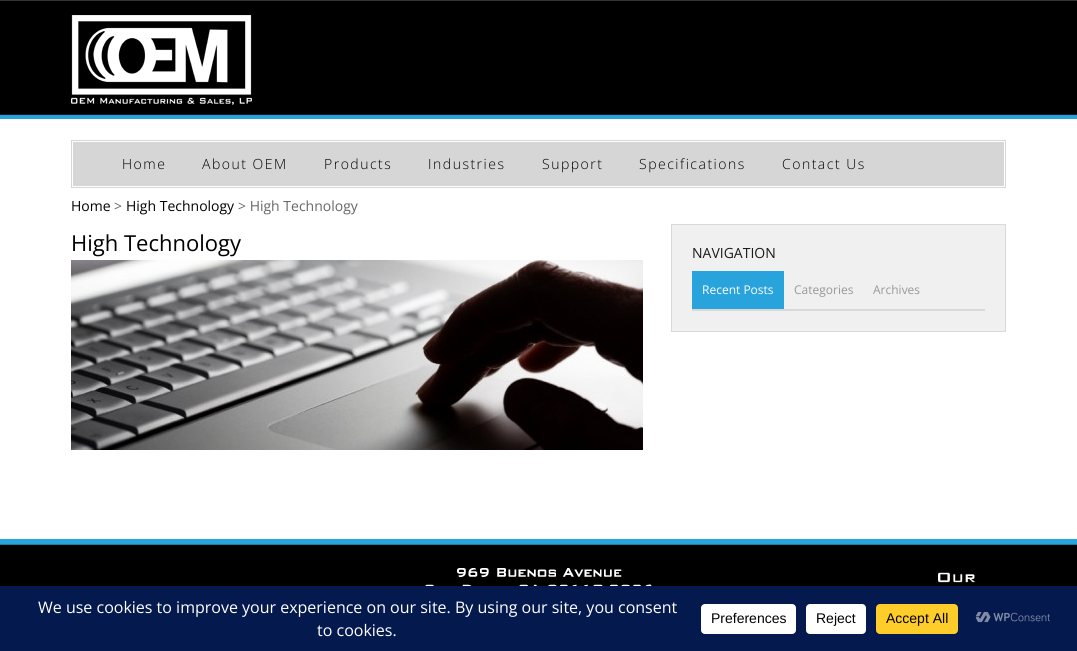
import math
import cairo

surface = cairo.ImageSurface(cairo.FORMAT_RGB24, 1077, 651)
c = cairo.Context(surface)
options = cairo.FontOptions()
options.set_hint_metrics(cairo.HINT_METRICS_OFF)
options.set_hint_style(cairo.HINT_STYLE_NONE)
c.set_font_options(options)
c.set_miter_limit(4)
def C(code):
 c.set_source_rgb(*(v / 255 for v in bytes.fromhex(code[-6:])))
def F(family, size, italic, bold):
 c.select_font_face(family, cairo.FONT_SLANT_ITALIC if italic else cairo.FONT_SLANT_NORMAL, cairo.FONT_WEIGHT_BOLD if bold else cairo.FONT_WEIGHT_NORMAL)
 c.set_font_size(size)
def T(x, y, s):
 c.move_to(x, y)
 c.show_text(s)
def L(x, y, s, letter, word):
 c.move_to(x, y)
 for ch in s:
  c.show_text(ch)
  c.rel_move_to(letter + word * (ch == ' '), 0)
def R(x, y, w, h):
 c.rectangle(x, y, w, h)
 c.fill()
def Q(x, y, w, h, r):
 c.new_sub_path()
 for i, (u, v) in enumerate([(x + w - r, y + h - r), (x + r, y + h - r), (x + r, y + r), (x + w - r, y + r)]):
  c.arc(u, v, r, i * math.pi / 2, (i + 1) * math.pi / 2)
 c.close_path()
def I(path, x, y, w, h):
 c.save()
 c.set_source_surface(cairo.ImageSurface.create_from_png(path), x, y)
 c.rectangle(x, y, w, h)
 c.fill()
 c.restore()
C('ffffff')
c.paint()
I('1.png',0,0,1077,119)
I('2.png',71,15,181,90)
c.rectangle(71.5,140.5,934,47)
C('d6d6d6')
c.set_line_width(1)
c.stroke()
R(73,142,931,44)
F('Open Sans Light',14,0,0)
C('000000')
L(122,169,'Home',1.5,0)
L(202,169,'About OEM',1.5,0)
L(324,169,'Products',1.5,0)
L(428,169,'Industries',1.5,0)
L(542,169,'Support',1.5,0)
L(639,169,'Specifications',1.5,0)
L(782,169,'Contact Us',1.5,0)
F('Open Sans',14,0,0)
T(71,211,'Home')
C('666666')
T(114,211,'>')
C('000000')
T(126,211,'High Technology')
C('666666')
T(238,211,'> High Technology')
F('Open Sans',22,0,0)
C('000000')
T(71,251,'High Technology')
I('3.png',71,260,572,190)
C('f0f0f0')
c.rectangle(671.5,224.5,334,107)
c.fill_preserve()
C('d9d9d9')
c.stroke()
F('Open Sans',14,0,0)
C('1b1b1b')
T(692,258,'NAVIGATION')
C('29a3dc')
R(692,271,92,38)
F('Open Sans',12,0,0)
C('ffffff')
T(702,294,'Recent Posts')
C('999999')
T(794,294,'Categories')
T(873,294,'Archives')
C('d9d9d9')
R(692,309,293,2)
I('4.png',0,538,1077,48)
I('5.png',425,568,227,18)
I('6.png',938,572,38,11)
C('04194e')
R(0,586,1077,65)
F('Open Sans',16,0,0)
C('ffffff')
T(38,613,'We use cookies to improve your experience on our site. By using our site, you consent')
T(317,636,'to cookies.')
Q(701,604,95,30,4)
c.fill()
F('Liberation Sans',14,0,0)
C('000000')
T(711,623,'Preferences')
C('ffffff')
Q(806,604,60,30,4)
c.fill()
C('000000')
T(816,623,'Reject')
C('ffcd2a')
Q(876,604,82,30,4)
c.fill()
C('000000')
T(886,623,'Accept All')
I('7.png',975,612,75,11)
surface.write_to_png('o.png')
